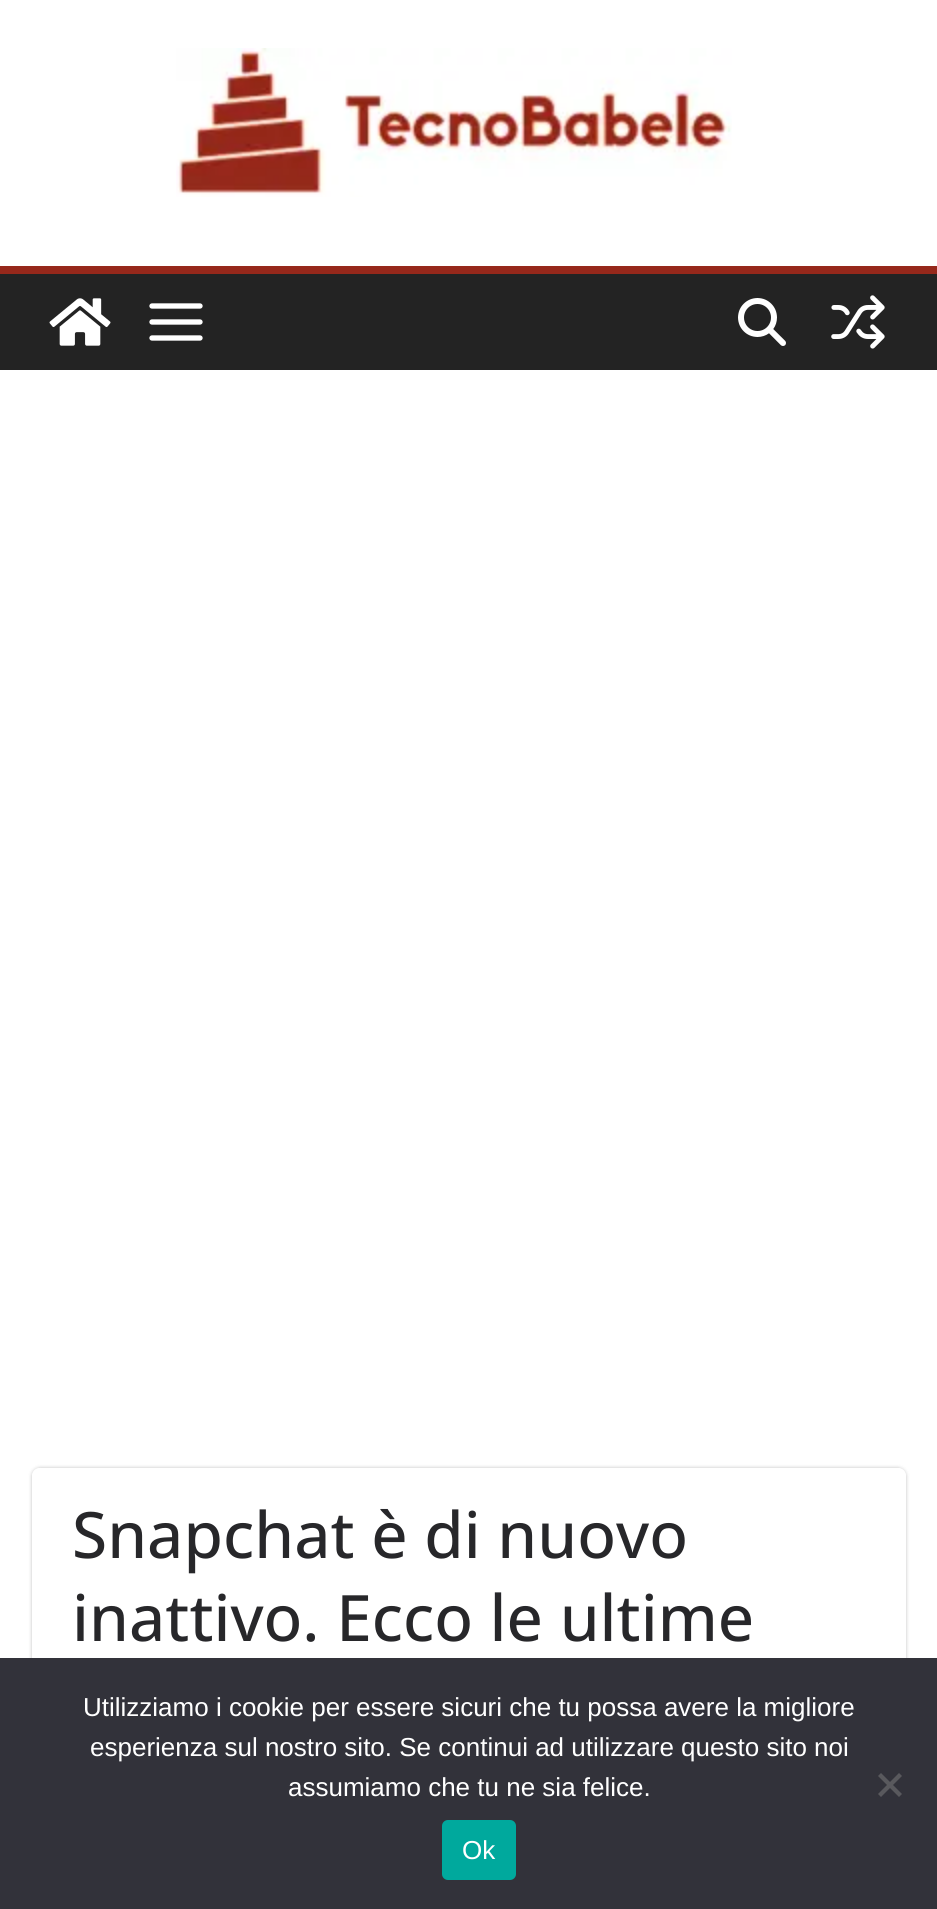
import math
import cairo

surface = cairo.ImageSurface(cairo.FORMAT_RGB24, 937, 1909)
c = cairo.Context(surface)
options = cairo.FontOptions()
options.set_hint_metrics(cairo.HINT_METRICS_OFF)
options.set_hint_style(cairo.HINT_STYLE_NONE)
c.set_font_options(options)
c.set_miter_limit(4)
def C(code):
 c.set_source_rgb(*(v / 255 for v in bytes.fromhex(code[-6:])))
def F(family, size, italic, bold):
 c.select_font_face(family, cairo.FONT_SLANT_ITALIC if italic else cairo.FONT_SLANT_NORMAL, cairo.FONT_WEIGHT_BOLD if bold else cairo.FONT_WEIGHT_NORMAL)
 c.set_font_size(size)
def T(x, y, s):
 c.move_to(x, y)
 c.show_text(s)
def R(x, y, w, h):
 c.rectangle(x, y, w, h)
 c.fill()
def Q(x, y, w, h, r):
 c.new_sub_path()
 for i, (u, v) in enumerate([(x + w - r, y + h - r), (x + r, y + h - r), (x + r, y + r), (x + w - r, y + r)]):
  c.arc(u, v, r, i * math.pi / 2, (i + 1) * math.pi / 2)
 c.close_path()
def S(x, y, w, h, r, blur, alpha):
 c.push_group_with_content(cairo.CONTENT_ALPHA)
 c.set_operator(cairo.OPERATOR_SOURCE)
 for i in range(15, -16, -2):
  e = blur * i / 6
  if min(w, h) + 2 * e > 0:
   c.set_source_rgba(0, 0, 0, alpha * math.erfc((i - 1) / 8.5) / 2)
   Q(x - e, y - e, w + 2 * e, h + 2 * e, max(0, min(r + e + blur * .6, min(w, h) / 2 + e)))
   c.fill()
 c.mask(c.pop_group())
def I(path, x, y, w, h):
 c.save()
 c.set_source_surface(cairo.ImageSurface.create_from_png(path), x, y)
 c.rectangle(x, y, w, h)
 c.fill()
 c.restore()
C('ffffff')
c.paint()
I('1.png',176,48,556,149)
C('232323')
R(0,274,937,96)
C('96281b')
R(0,266,937,8)
I('2.png',49,298,62,48)
I('3.png',149,303,54,38)
I('4.png',738,298,48,48)
I('5.png',831,295,54,54)
c.save()
c.set_fill_rule(cairo.FILL_RULE_EVEN_ODD)
c.new_path()
c.move_to(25,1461)
c.line_to(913,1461)
c.line_to(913,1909)
c.line_to(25,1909)
c.close_path()
c.move_to(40,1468)
c.line_to(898,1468)
c.curve_to(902.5,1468,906,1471.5,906,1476)
c.line_to(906,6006)
c.curve_to(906,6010.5,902.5,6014,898,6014)
c.line_to(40,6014)
c.curve_to(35.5,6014,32,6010.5,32,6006)
c.line_to(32,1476)
c.curve_to(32,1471.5,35.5,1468,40,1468)
c.close_path()
c.clip()
C('000000')
S(32,1468,874,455,8,2,.24)
c.restore()
F('Open Sans Medium',64,0,0)
C('27272a')
T(72,1558,'Snapchat è di nuovo')
T(72,1641,'inattivo. Ecco le ultime')
C('32323a')
R(0,1658,937,251)
F('Liberation Sans',26,0,0)
C('ffffff')
T(83,1716,'Utilizziamo i cookie per essere sicuri che tu possa avere la migliore')
T(90,1756,'esperienza sul nostro sito. Se continui ad utilizzare questo sito noi')
T(288,1796,'assumiamo che tu ne sia felice.')
C('59595d')
c.new_path()
c.move_to(899,1773)
c.line_to(902,1776)
c.line_to(881,1797)
c.line_to(878,1794)
c.close_path()
c.fill()
c.new_path()
c.move_to(878,1776)
c.line_to(881,1773)
c.line_to(902,1794)
c.line_to(899,1797)
c.close_path()
c.fill()
C('00a99d')
Q(442,1820,74,60,6)
c.fill()
C('ffffff')
T(462,1859,'Ok')
surface.write_to_png('o.png')
